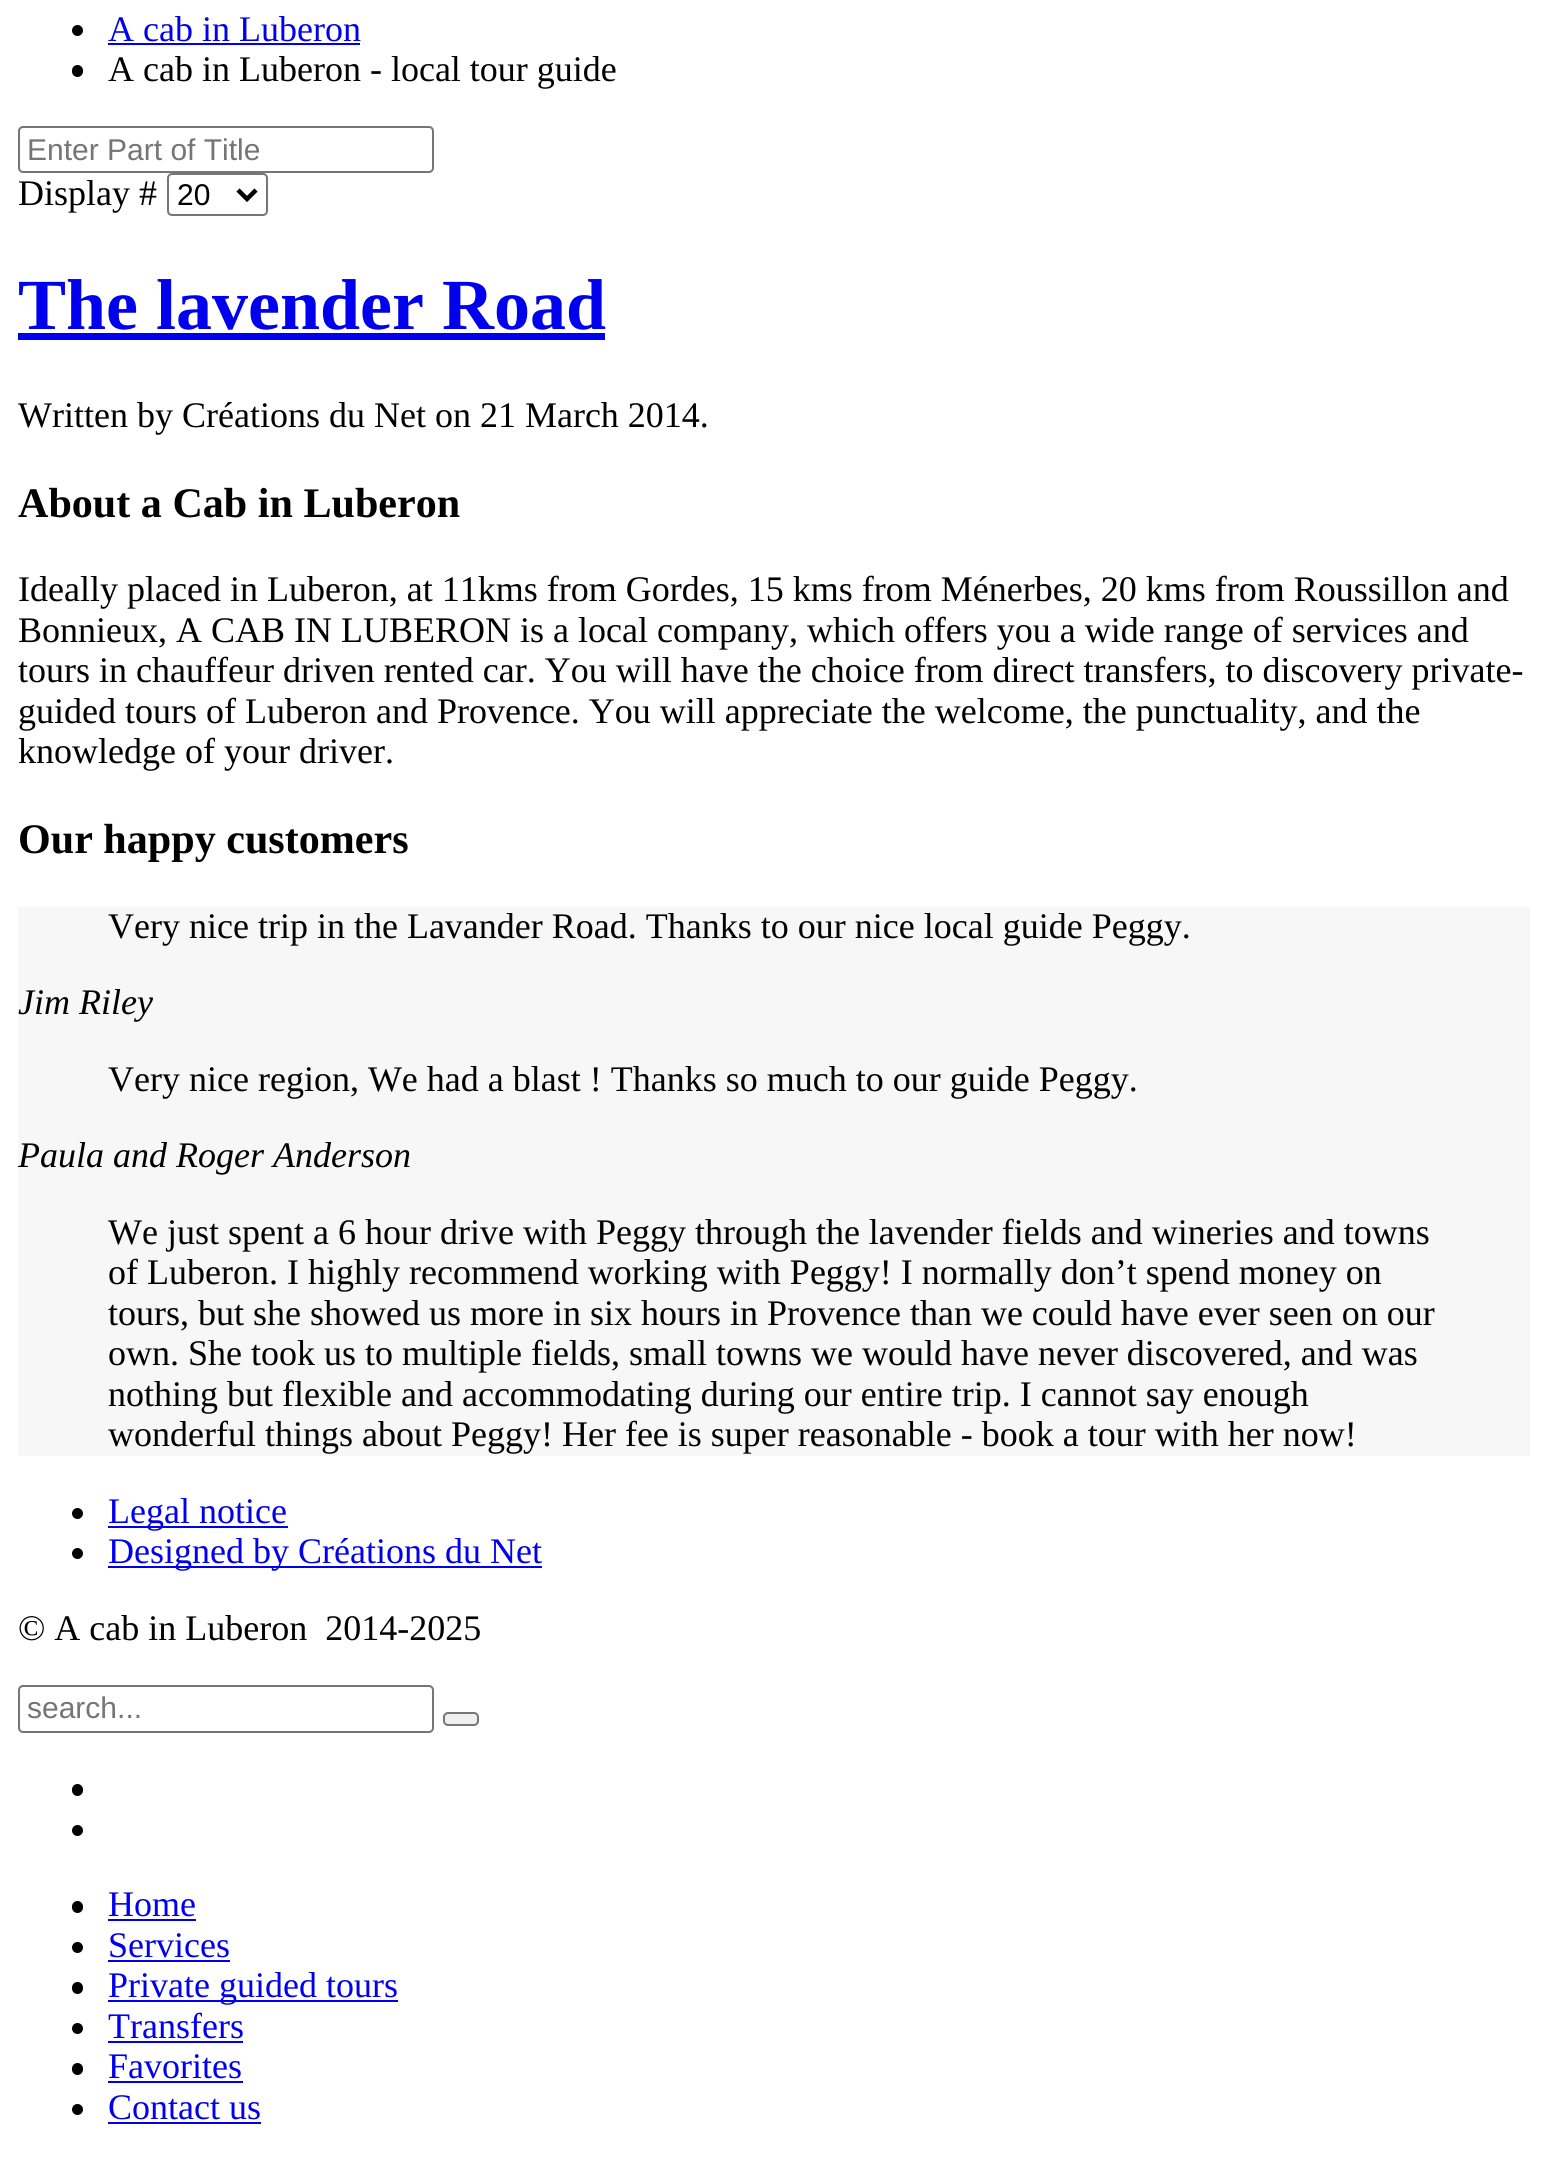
import math
import cairo

surface = cairo.ImageSurface(cairo.FORMAT_RGB24, 1548, 2163)
c = cairo.Context(surface)
options = cairo.FontOptions()
options.set_hint_metrics(cairo.HINT_METRICS_OFF)
options.set_hint_style(cairo.HINT_STYLE_NONE)
c.set_font_options(options)
c.set_miter_limit(4)
def C(code):
 c.set_source_rgb(*(v / 255 for v in bytes.fromhex(code[-6:])))
def F(family, size, italic, bold):
 c.select_font_face(family, cairo.FONT_SLANT_ITALIC if italic else cairo.FONT_SLANT_NORMAL, cairo.FONT_WEIGHT_BOLD if bold else cairo.FONT_WEIGHT_NORMAL)
 c.set_font_size(size)
def T(x, y, s):
 c.move_to(x, y)
 c.show_text(s)
def R(x, y, w, h):
 c.rectangle(x, y, w, h)
 c.fill()
def Q(x, y, w, h, r):
 c.new_sub_path()
 for i, (u, v) in enumerate([(x + w - r, y + h - r), (x + r, y + h - r), (x + r, y + r), (x + w - r, y + r)]):
  c.arc(u, v, r, i * math.pi / 2, (i + 1) * math.pi / 2)
 c.close_path()
C('ffffff')
c.paint()
C('000000')
c.arc(77.5,30.5,5.5,0,2 * math.pi)
c.fill()
F('Liberation Serif',36,0,0)
C('0000ee')
T(108,41,'A cab in Luberon')
R(108,43,252,2)
C('000000')
Q(72,65,11,12,5.5)
c.fill()
T(108,81,'A cab in Luberon - local tour guide')
Q(19,127,414,45,4)
C('767676')
c.stroke()
F('Liberation Sans',30,0,0)
C('757575')
T(27,160,'Enter Part of Title')
F('Liberation Serif',36,0,0)
C('000000')
T(18,205,'Display #')
Q(168,174,99,41,4)
C('767676')
c.stroke()
c.new_path()
c.move_to(238,190)
c.line_to(247,199)
c.line_to(256,190)
C('000000')
c.set_line_width(4.5)
c.stroke()
F('Liberation Sans',30,0,0)
T(177,205,'20')
F('Liberation Serif',72,0,1)
C('0000ee')
T(18,329,'The lavender Road')
R(18,333,587,7)
F('Liberation Serif',36,0,0)
C('000000')
T(18,427,'Written by Créations du Net on 21 March 2014.')
F('Liberation Serif',42.1,0,1)
T(18,517,'About a Cab in Luberon')
F('Liberation Serif',36,0,0)
T(18,601,'Ideally placed in Luberon, at 11kms from Gordes, 15 kms from Ménerbes, 20 kms from Roussillon and')
T(18,642,'Bonnieux, A CAB IN LUBERON is a local company, which offers you a wide range of services and')
T(18,682,'tours in chauffeur driven rented car. You will have the choice from direct transfers, to discovery private-')
T(18,723,'guided tours of Luberon and Provence. You will appreciate the welcome, the punctuality, and the')
T(18,763,'knowledge of your driver.')
F('Liberation Serif',42.1,0,1)
T(18,853,'Our happy customers')
C('f7f7f7')
R(18,907,1512,549)
F('Liberation Serif',36,0,0)
C('000000')
T(108,938,'Very nice trip in the Lavander Road. Thanks to our nice local guide Peggy.')
F('Liberation Serif',36,1,0)
T(18,1014,'Jim Riley')
F('Liberation Serif',36,0,0)
T(108,1091,'Very nice region, We had a blast ! Thanks so much to our guide Peggy.')
F('Liberation Serif',36,1,0)
T(18,1167,'Paula and Roger Anderson')
F('Liberation Serif',36,0,0)
T(108,1244,'We just spent a 6 hour drive with Peggy through the lavender fields and wineries and towns')
T(108,1284,'of Luberon. I highly recommend working with Peggy! I normally don’t spend money on')
T(108,1325,'tours, but she showed us more in six hours in Provence than we could have ever seen on our')
T(108,1365,'own. She took us to multiple fields, small towns we would have never discovered, and was')
T(108,1406,'nothing but flexible and accommodating during our entire trip. I cannot say enough')
T(108,1446,'wonderful things about Peggy! Her fee is super reasonable - book a tour with her now!')
c.new_path()
c.arc(77.5,1513.5,5.5,0,2 * math.pi)
c.fill()
C('0000ee')
R(108,1526,180,2)
T(108,1523,'Legal notice')
C('000000')
c.new_path()
c.arc(77.5,1553.5,5.5,0,2 * math.pi)
c.fill()
C('0000ee')
R(108,1566,434,2)
T(108,1563,'Designed by Créations du Net')
C('000000')
T(18,1640,'© A cab in Luberon  2014-2025')
Q(19,1686,414,46,4)
C('767676')
c.set_line_width(2)
c.stroke()
F('Liberation Sans',30,0,0)
C('757575')
T(27,1718,'search...')
C('efefef')
Q(444,1713,34,12,4)
c.fill_preserve()
C('767676')
c.stroke()
C('000000')
Q(72,1784,11,12,5.5)
c.fill()
c.arc(77.5,1830.5,5.5,0,2 * math.pi)
c.fill()
Q(72,1901,11,12,5.5)
c.fill()
F('Liberation Serif',36,0,0)
C('0000ee')
T(108,1916,'Home')
R(108,1919,88,2)
C('000000')
c.new_path()
c.arc(77.5,1947.5,5.5,0,2 * math.pi)
c.fill()
C('0000ee')
T(108,1957,'Services')
R(108,1960,122,2)
C('000000')
Q(72,1982,11,12,5.5)
c.fill()
C('0000ee')
R(108,2000,290,2)
T(108,1997,'Private guided tours')
C('000000')
c.new_path()
c.arc(77.5,2028.5,5.5,0,2 * math.pi)
c.fill()
C('0000ee')
T(108,2038,'Transfers')
R(108,2041,135,2)
C('000000')
Q(72,2063,11,12,5.5)
c.fill()
C('0000ee')
T(108,2078,'Favorites')
R(108,2081,135,2)
C('000000')
c.new_path()
c.arc(77.5,2109.5,5.5,0,2 * math.pi)
c.fill()
C('0000ee')
T(108,2119,'Contact us')
R(108,2122,153,2)
surface.write_to_png('o.png')
